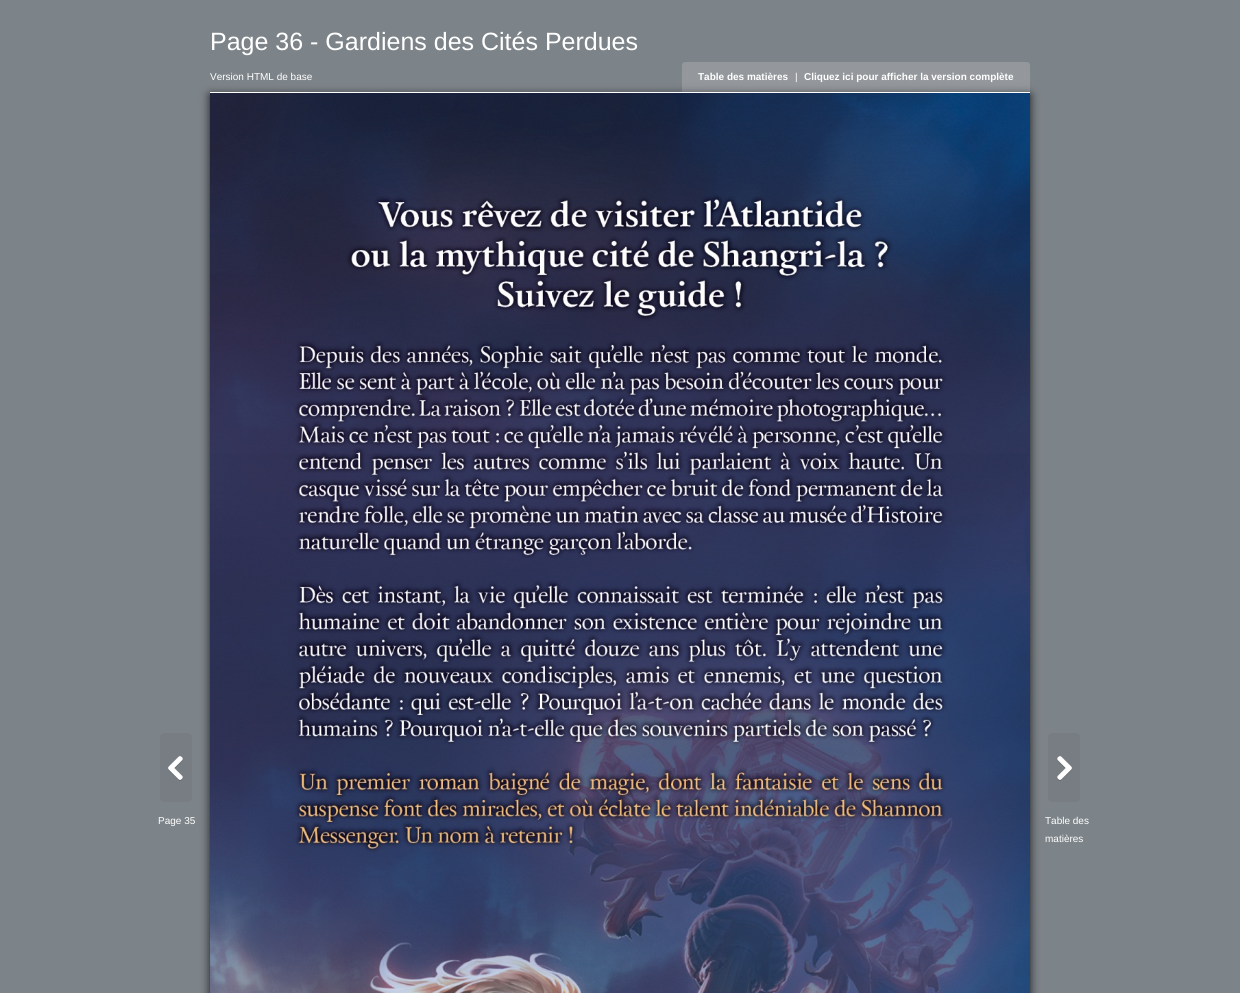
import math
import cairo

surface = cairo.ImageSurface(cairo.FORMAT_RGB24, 1240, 993)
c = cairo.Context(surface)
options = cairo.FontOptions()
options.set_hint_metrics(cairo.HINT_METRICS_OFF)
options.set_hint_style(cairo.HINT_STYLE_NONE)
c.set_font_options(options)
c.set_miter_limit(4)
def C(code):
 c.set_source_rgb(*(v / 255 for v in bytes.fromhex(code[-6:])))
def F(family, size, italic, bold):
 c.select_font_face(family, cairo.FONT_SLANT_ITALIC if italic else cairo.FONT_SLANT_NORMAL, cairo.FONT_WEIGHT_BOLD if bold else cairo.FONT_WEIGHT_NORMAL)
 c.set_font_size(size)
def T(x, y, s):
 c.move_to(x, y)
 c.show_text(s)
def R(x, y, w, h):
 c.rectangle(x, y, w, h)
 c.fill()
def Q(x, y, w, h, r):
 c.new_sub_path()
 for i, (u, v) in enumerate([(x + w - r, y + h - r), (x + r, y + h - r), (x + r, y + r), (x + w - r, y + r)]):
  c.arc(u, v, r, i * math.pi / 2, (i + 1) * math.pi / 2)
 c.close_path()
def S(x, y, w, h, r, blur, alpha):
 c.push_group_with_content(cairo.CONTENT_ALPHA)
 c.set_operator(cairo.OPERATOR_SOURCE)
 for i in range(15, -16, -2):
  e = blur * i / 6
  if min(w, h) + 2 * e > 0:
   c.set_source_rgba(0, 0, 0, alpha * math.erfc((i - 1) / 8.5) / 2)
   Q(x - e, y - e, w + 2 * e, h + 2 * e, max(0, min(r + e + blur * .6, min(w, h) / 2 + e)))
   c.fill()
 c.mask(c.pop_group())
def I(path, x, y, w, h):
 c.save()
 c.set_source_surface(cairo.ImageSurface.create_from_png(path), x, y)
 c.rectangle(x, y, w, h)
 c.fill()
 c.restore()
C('7d8489')
c.paint()
F('Liberation Sans',25,0,0)
C('ffffff')
T(210,50,'Page 36 - Gardiens des Cités Perdues')
F('Liberation Sans',10,0,0)
T(210,80,'Version HTML de base')
C('94989c')
c.new_path()
c.move_to(685,62)
c.line_to(1027,62)
c.curve_to(1028.5,62,1030,63.5,1030,65)
c.line_to(1030,92)
c.line_to(682,92)
c.line_to(682,65)
c.curve_to(682,63.5,683.5,62,685,62)
c.close_path()
c.fill()
F('Liberation Sans',10,0,1)
C('ffffff')
T(698,80,'Table des matières')
F('Liberation Sans',10,0,0)
T(795,80,'|')
F('Liberation Sans',10,0,1)
T(804,80,'Cliquez ici pour afficher la version complète')
C('000000')
S(210,95,820,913,0,5,.8)
C('ffffff')
R(210,92,820,1)
I('1.png',210,93,820,900)
I('2.png',160,733,32,69)
F('Liberation Sans',10,0,0)
T(158,824,'Page 35')
I('3.png',1048,733,32,69)
T(1045,824,'Table des')
T(1045,842,'matières')
surface.write_to_png('o.png')
